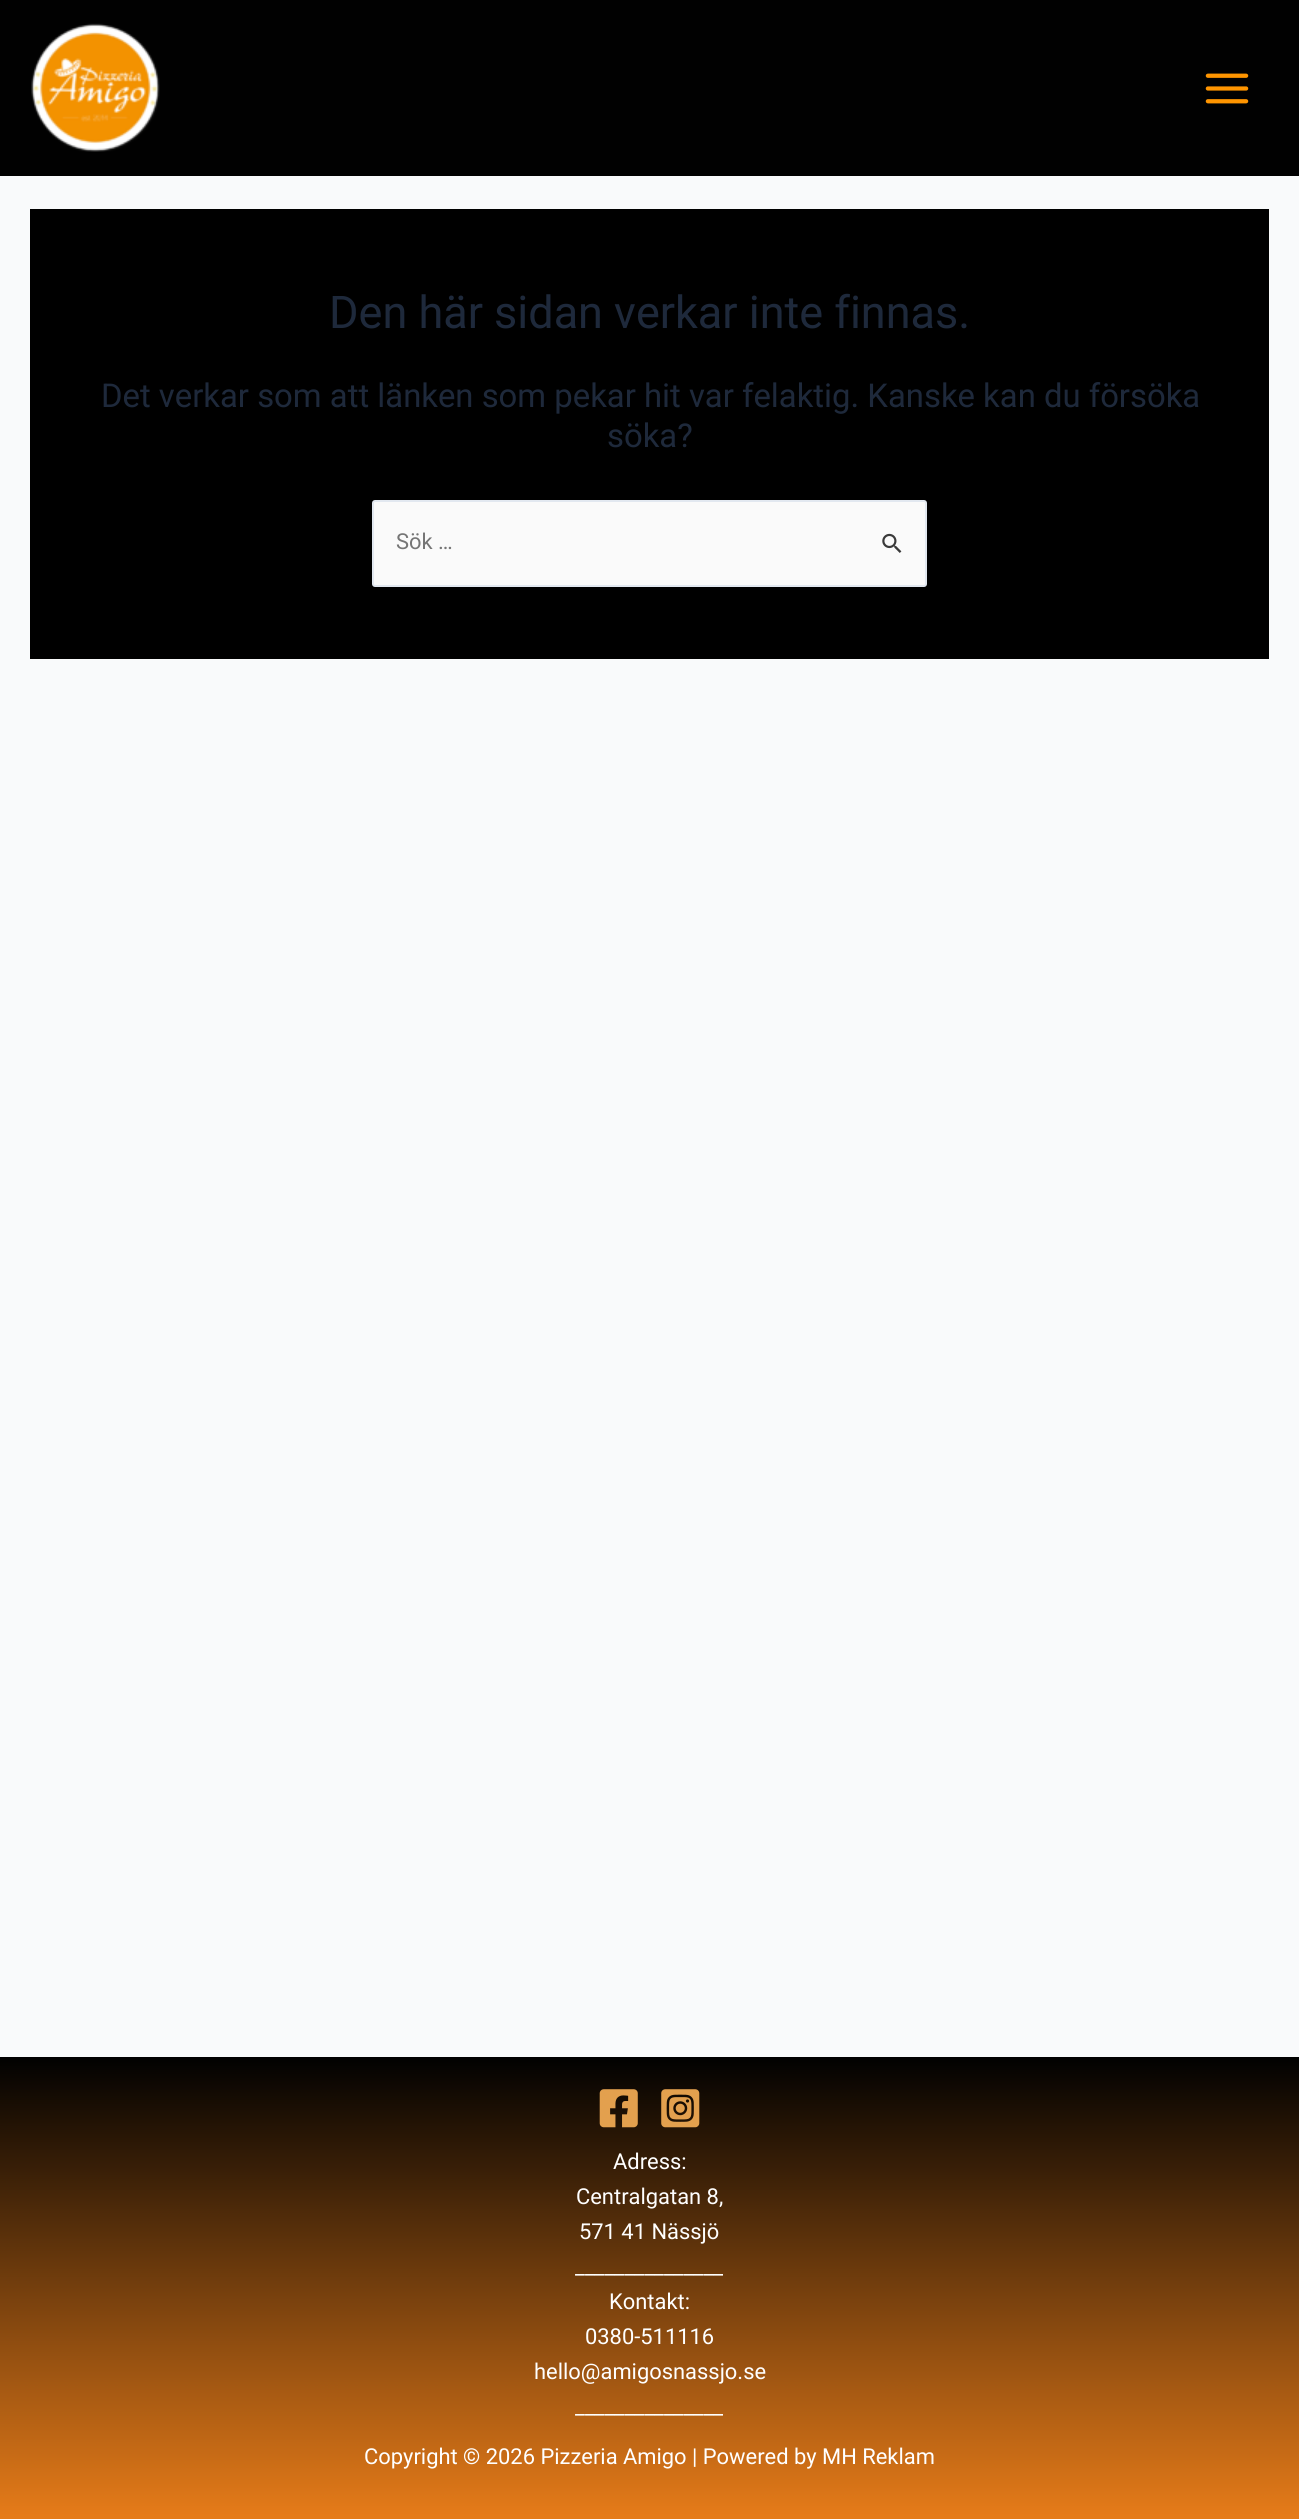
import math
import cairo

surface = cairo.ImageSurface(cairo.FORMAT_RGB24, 1299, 2519)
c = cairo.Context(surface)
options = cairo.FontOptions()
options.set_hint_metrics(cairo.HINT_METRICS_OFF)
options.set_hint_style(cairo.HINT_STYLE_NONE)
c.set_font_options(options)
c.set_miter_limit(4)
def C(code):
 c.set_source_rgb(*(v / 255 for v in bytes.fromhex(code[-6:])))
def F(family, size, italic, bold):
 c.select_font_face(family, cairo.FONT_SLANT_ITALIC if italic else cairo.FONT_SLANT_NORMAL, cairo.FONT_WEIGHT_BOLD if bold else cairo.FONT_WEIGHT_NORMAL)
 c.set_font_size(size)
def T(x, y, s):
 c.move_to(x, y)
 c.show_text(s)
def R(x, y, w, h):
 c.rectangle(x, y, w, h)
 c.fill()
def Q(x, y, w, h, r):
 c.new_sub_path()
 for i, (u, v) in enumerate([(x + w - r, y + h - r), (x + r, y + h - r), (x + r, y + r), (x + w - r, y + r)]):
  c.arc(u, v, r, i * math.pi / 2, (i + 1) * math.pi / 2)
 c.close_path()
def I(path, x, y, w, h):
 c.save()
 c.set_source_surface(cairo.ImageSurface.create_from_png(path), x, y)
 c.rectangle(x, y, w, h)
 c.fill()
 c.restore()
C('f9fafb')
c.paint()
C('010101')
R(0,0,1299,176)
I('1.png',31,23,129,129)
I('2.png',1205,73,44,31)
C('000000')
R(30,209,1239,450)
F('Roboto',45,0,0)
C('1e293b')
T(329,328,'Den här sidan verkar inte finnas.')
F('Roboto',32.85,0,0)
T(101,407,'Det verkar som att länken som pekar hit var felaktig. Kanske kan du försöka')
T(607,447,'söka?')
C('fafafa')
Q(373,501,553,85,2)
c.fill_preserve()
C('e2e8f0')
c.stroke()
F('Roboto',21.9,0,0)
C('757575')
T(396,549,'Sök …')
I('3.png',882,533,20,20)
gradient = cairo.LinearGradient(650,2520,650,2057)
gradient.add_color_stop_rgba(.01,0.898,0.482,0.098,1)
gradient.add_color_stop_rgba(1,0.004,0.004,0.004,1)
c.set_source(gradient)
R(0,2057,1299,462)
I('4.png',599,2089,39,39)
I('5.png',661,2089,39,39)
C('ffffff')
T(613,2169,'Adress:')
T(576,2204,'Centralgatan 8,')
T(579,2239,'571 41 Nässjö')
T(575,2274,'_______________')
T(609,2309,'Kontakt:')
T(585,2344,'0380-511116')
T(534,2379,'hello@amigosnassjo.se')
T(575,2414,'_______________')
T(364,2464,'Copyright © 2026 Pizzeria Amigo | Powered by MH Reklam')
surface.write_to_png('o.png')
